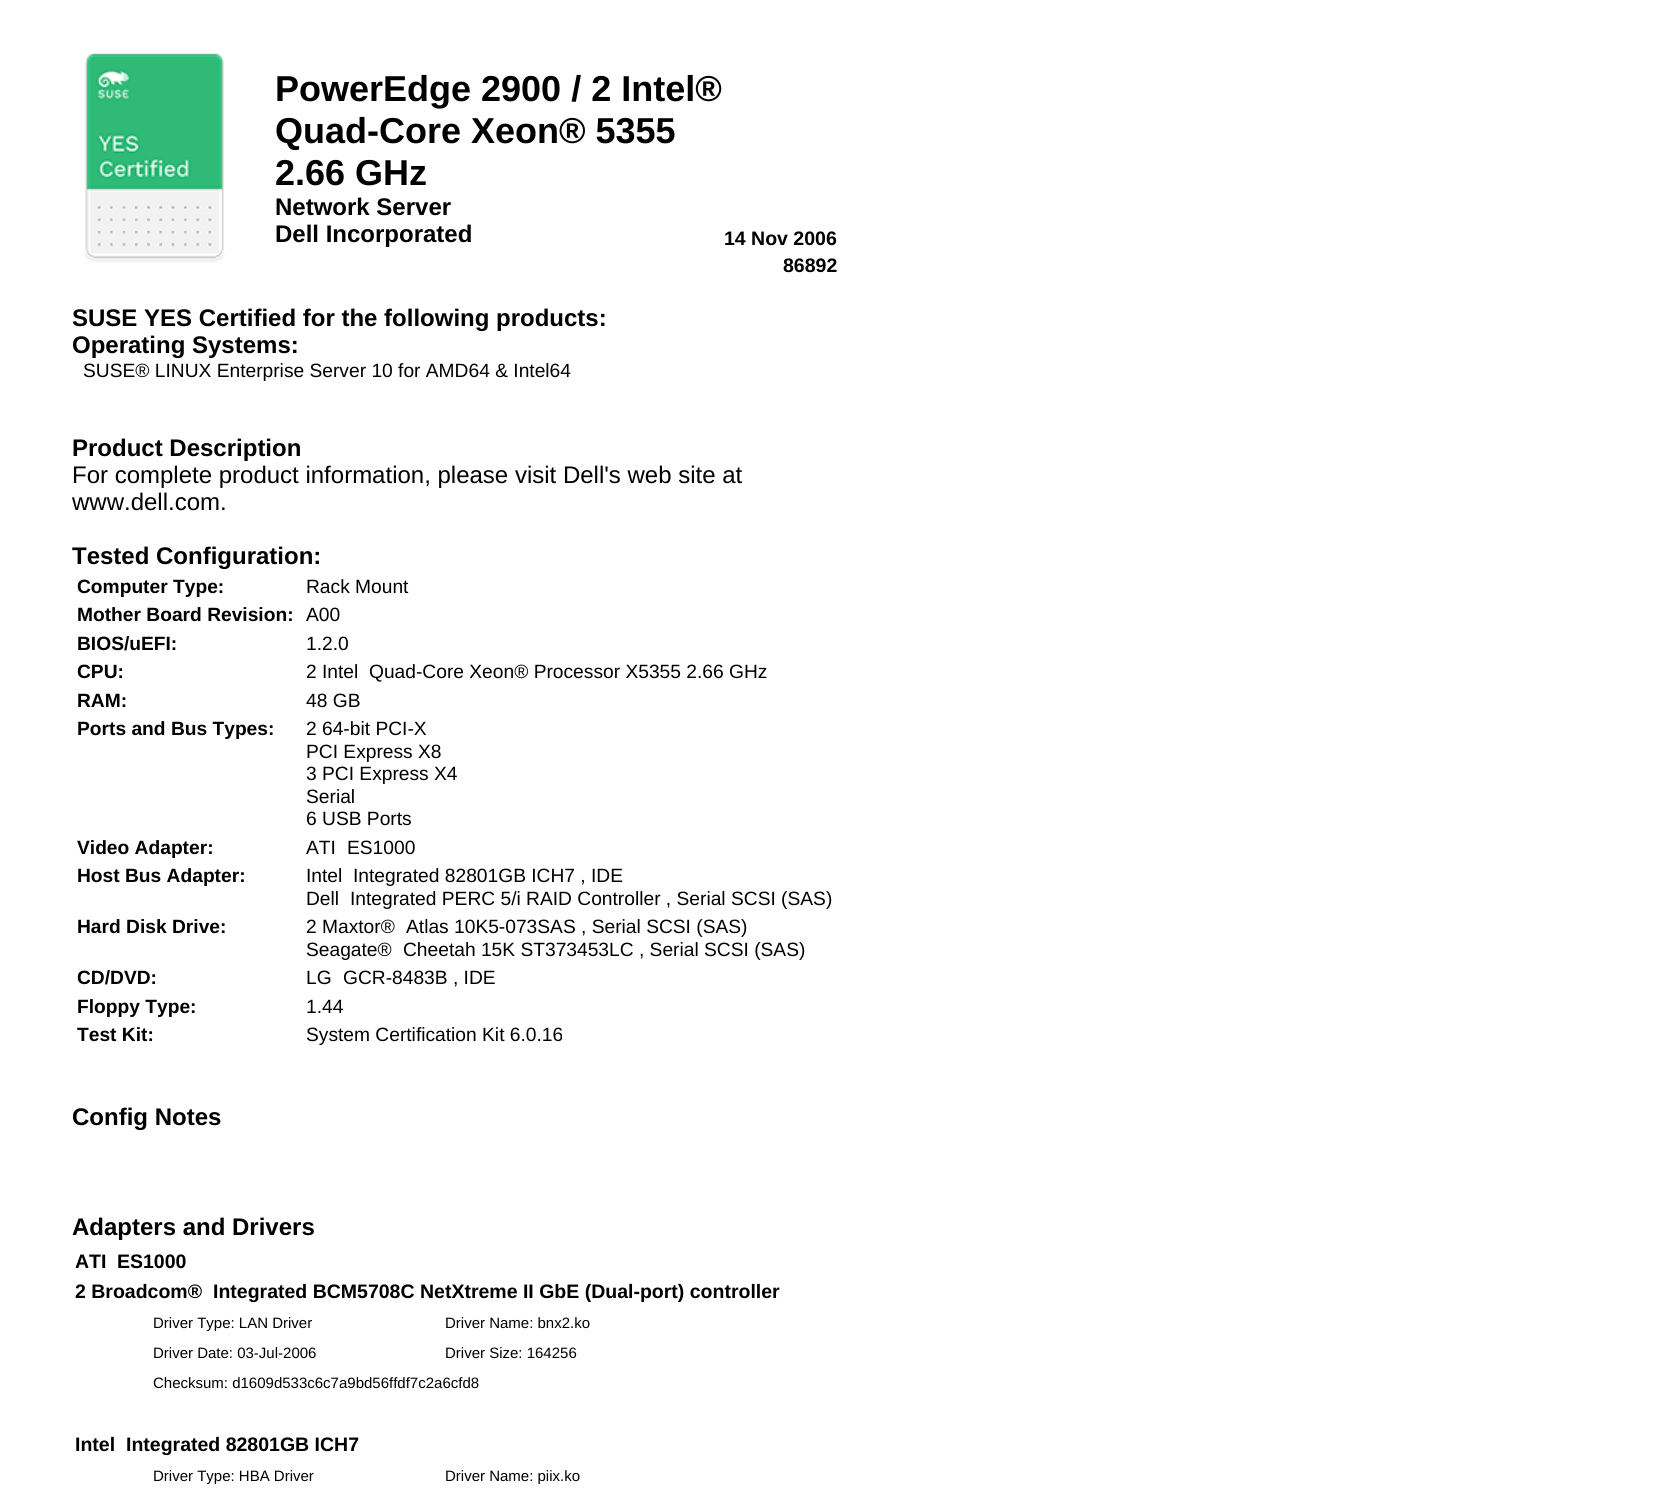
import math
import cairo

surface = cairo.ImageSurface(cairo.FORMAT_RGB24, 1669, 1492)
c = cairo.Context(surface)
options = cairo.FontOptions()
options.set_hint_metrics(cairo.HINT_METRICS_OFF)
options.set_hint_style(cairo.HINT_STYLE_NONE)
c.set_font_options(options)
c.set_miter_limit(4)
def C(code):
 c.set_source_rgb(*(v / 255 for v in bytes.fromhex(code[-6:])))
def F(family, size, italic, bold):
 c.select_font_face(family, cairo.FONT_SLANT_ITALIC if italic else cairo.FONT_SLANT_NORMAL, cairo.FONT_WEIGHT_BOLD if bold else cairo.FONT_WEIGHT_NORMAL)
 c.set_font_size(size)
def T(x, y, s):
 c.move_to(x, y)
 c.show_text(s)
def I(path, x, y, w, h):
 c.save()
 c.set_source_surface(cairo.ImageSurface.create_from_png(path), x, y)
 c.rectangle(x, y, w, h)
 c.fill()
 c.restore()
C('ffffff')
c.paint()
I('1.png',84,53,141,210)
F('Liberation Sans',36,0,1)
C('000000')
T(275,101,'PowerEdge 2900 / 2 Intel®')
T(275,143,'Quad-Core Xeon® 5355')
T(275,185,'2.66 GHz')
F('Liberation Sans',24,0,1)
T(275,215,'Network Server')
T(275,242,'Dell Incorporated')
F('Liberation Sans',19.5,0,1)
T(724,245,'14 Nov 2006')
T(783,272,'86892')
F('Liberation Sans',24,0,1)
T(72,326,'SUSE YES Certified for the following products:')
T(72,353,'Operating Systems:')
F('Liberation Sans',19.2,0,0)
T(83,377,'SUSE® LINUX Enterprise Server 10 for AMD64 & Intel64')
F('Liberation Sans',24,0,1)
T(72,456,'Product Description')
F('Liberation Sans',24,0,0)
T(72,483,'For complete product information, please visit Dell\'s web site at')
T(72,510,'www.dell.com.')
F('Liberation Sans',24,0,1)
T(72,564,'Tested Configuration:')
F('Liberation Sans',19.2,0,1)
T(77,593,'Computer Type:')
F('Liberation Sans',19.2,0,0)
T(306,593,'Rack Mount')
F('Liberation Sans',19.2,0,1)
T(77,621,'Mother Board Revision:')
F('Liberation Sans',19.2,0,0)
T(306,621,'A00')
F('Liberation Sans',19.2,0,1)
T(77,650,'BIOS/uEFI:')
F('Liberation Sans',19.2,0,0)
T(306,650,'1.2.0')
F('Liberation Sans',19.2,0,1)
T(77,678,'CPU:')
F('Liberation Sans',19.2,0,0)
T(306,678,'2 Intel')
T(369,678,'Quad-Core Xeon® Processor X5355 2.66 GHz')
F('Liberation Sans',19.2,0,1)
T(77,707,'RAM:')
F('Liberation Sans',19.2,0,0)
T(306,707,'48 GB')
F('Liberation Sans',19.2,0,1)
T(77,735,'Ports and Bus Types:')
F('Liberation Sans',19.2,0,0)
T(306,735,'2 64-bit PCI-X')
T(306,758,'PCI Express X8')
T(306,780,'3 PCI Express X4')
T(306,803,'Serial')
T(306,825,'6 USB Ports')
F('Liberation Sans',19.2,0,1)
T(77,854,'Video Adapter:')
F('Liberation Sans',19.2,0,0)
T(306,854,'ATI')
T(347,854,'ES1000')
F('Liberation Sans',19.2,0,1)
T(77,882,'Host Bus Adapter:')
F('Liberation Sans',19.2,0,0)
T(306,882,'Intel')
T(353,882,'Integrated 82801GB ICH7 , IDE')
T(306,905,'Dell')
T(350,905,'Integrated PERC 5/i RAID Controller , Serial SCSI (SAS)')
F('Liberation Sans',19.2,0,1)
T(77,933,'Hard Disk Drive:')
F('Liberation Sans',19.2,0,0)
T(306,933,'2 Maxtor®')
T(406,933,'Atlas 10K5-073SAS , Serial SCSI (SAS)')
T(306,956,'Seagate®')
T(403,956,'Cheetah 15K ST373453LC , Serial SCSI (SAS)')
F('Liberation Sans',19.2,0,1)
T(77,984,'CD/DVD:')
F('Liberation Sans',19.2,0,0)
T(306,984,'LG')
T(343,984,'GCR-8483B , IDE')
F('Liberation Sans',19.2,0,1)
T(77,1013,'Floppy Type:')
F('Liberation Sans',19.2,0,0)
T(306,1013,'1.44')
F('Liberation Sans',19.2,0,1)
T(77,1041,'Test Kit:')
F('Liberation Sans',19.2,0,0)
T(306,1041,'System Certification Kit 6.0.16')
F('Liberation Sans',24,0,1)
T(72,1125,'Config Notes')
T(72,1235,'Adapters and Drivers')
F('Liberation Sans',19.5,0,1)
T(75,1268,'ATI')
T(117,1268,'ES1000')
T(75,1298,'2 Broadcom®')
T(213,1298,'Integrated BCM5708C NetXtreme II GbE (Dual-port) controller')
F('Liberation Sans',15,0,0)
T(153,1328,'Driver Type: LAN Driver')
T(445,1328,'Driver Name: bnx2.ko')
T(153,1358,'Driver Date: 03-Jul-2006')
T(445,1358,'Driver Size: 164256')
T(153,1388,'Checksum: d1609d533c6c7a9bd56ffdf7c2a6cfd8')
F('Liberation Sans',19.5,0,1)
T(75,1451,'Intel')
T(126,1451,'Integrated 82801GB ICH7')
F('Liberation Sans',15,0,0)
T(153,1481,'Driver Type: HBA Driver')
T(445,1481,'Driver Name: piix.ko')
surface.write_to_png('o.png')
